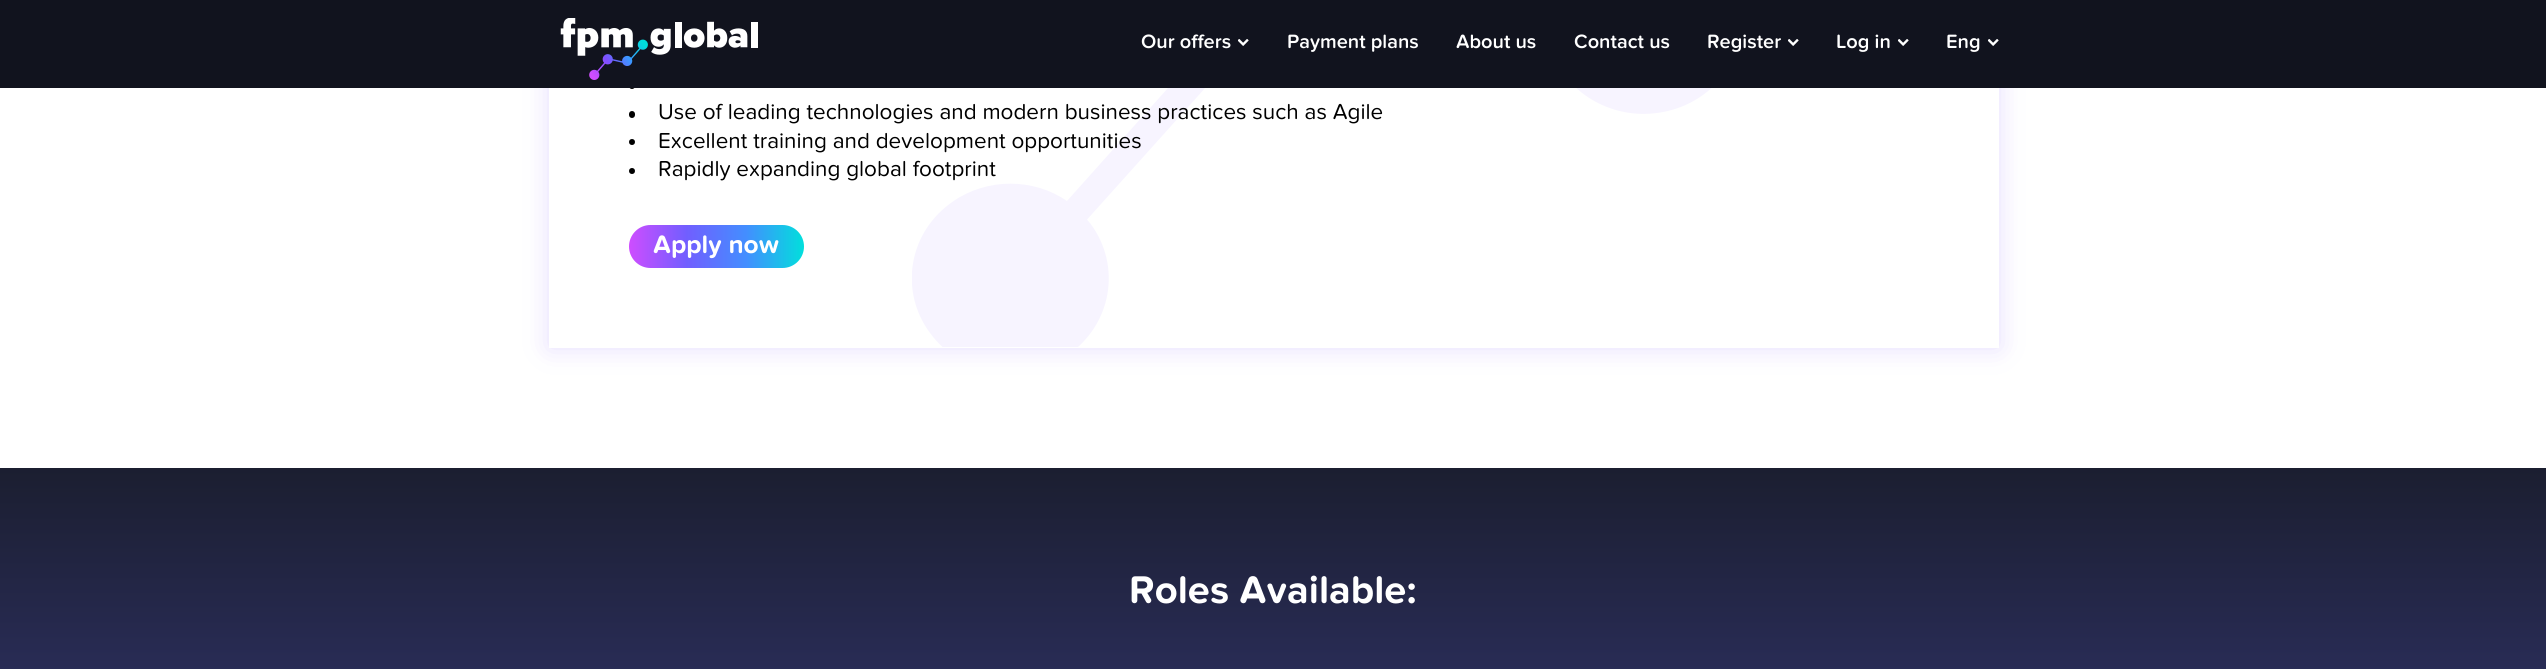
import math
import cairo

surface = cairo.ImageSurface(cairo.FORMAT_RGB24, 2546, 669)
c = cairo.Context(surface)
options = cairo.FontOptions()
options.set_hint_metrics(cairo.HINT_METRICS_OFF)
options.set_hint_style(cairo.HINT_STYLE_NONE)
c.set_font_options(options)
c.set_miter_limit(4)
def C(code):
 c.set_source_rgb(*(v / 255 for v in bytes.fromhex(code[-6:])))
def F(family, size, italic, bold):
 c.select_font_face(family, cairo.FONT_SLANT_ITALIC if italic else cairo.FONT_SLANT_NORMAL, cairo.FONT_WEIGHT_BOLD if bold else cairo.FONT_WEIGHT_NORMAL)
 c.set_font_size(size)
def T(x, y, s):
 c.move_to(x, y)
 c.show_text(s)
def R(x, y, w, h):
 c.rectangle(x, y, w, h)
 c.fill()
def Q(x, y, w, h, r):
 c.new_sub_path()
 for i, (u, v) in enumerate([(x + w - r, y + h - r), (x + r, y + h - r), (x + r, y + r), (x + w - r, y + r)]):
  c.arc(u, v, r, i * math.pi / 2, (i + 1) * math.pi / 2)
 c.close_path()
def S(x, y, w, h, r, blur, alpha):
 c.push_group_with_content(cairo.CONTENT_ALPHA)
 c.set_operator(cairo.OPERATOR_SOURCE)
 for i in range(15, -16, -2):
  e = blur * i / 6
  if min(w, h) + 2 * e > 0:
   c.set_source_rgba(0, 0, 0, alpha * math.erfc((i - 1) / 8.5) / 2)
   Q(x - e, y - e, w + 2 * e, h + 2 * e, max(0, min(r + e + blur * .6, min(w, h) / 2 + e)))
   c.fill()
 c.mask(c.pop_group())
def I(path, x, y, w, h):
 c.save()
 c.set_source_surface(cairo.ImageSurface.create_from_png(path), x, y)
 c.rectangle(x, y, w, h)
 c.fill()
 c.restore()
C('ffffff')
c.paint()
c.save()
c.set_fill_rule(cairo.FILL_RULE_EVEN_ODD)
c.new_path()
c.move_to(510,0)
c.line_to(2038,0)
c.line_to(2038,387)
c.line_to(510,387)
c.close_path()
c.move_to(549,-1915)
c.line_to(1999,-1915)
c.line_to(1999,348)
c.line_to(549,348)
c.close_path()
c.clip()
C('7f4fff')
S(549,-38,1450,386,0,12.5,.2)
c.restore()
C('000000')
c.arc(632,86,3,0,2 * math.pi)
c.fill()
C('11131e')
R(0,0,2546,88)
I('1.png',560,18,198,62)
F('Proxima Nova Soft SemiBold',20,0,0)
C('ffffff')
T(1141,48,'Our offers')
I('2.png',1238,39,11,7)
T(1287,48,'Payment plans')
T(1456,48,'About us')
T(1574,48,'Contact us')
T(1707,48,'Register')
I('2.png',1788,39,11,7)
T(1836,48,'Log in')
I('2.png',1898,39,11,7)
T(1946,48,'Eng')
I('2.png',1988,39,11,7)
I('3.png',912,88,800,259)
C('000000')
Q(629,111,6,7,3)
c.fill()
F('Proxima Nova Soft',22.5,0,0)
T(658,119,'Use of leading technologies and modern business practices such as Agile')
c.new_path()
c.arc(632,142,3,0,2 * math.pi)
c.fill()
T(658,148,'Excellent training and development opportunities')
c.new_path()
c.arc(632,171,3,0,2 * math.pi)
c.fill()
T(658,176,'Rapidly expanding global footprint')
gradient = cairo.LinearGradient(804,246,629,246)
gradient.add_color_stop_rgba(0,0.004,0.875,0.863,1)
gradient.add_color_stop_rgba(.33,0.263,0.557,1,1)
gradient.add_color_stop_rgba(.67,0.443,0.369,1,1)
gradient.add_color_stop_rgba(1,0.808,0.302,1,1)
gradient.add_color_stop_rgba(1,0.976,0.91,1,1)
gradient.add_color_stop_rgba(1,1,1,1,1)
gradient.add_color_stop_rgba(1,0.812,0.302,1,1)
c.set_source(gradient)
Q(629,225,175,43,21.5)
c.fill()
F('Proxima Nova Soft',26.25,0,1)
C('ffffff')
T(653,253,'Apply now')
gradient = cairo.LinearGradient(1273,467,1273,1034)
gradient.add_color_stop_rgba(0,0.106,0.118,0.188,1)
gradient.add_color_stop_rgba(1,0.255,0.267,0.596,1)
c.set_source(gradient)
R(0,468,2546,201)
F('Proxima Nova Soft',40,0,1)
C('ffffff')
T(1129,603,'Roles Available:')
surface.write_to_png('o.png')
